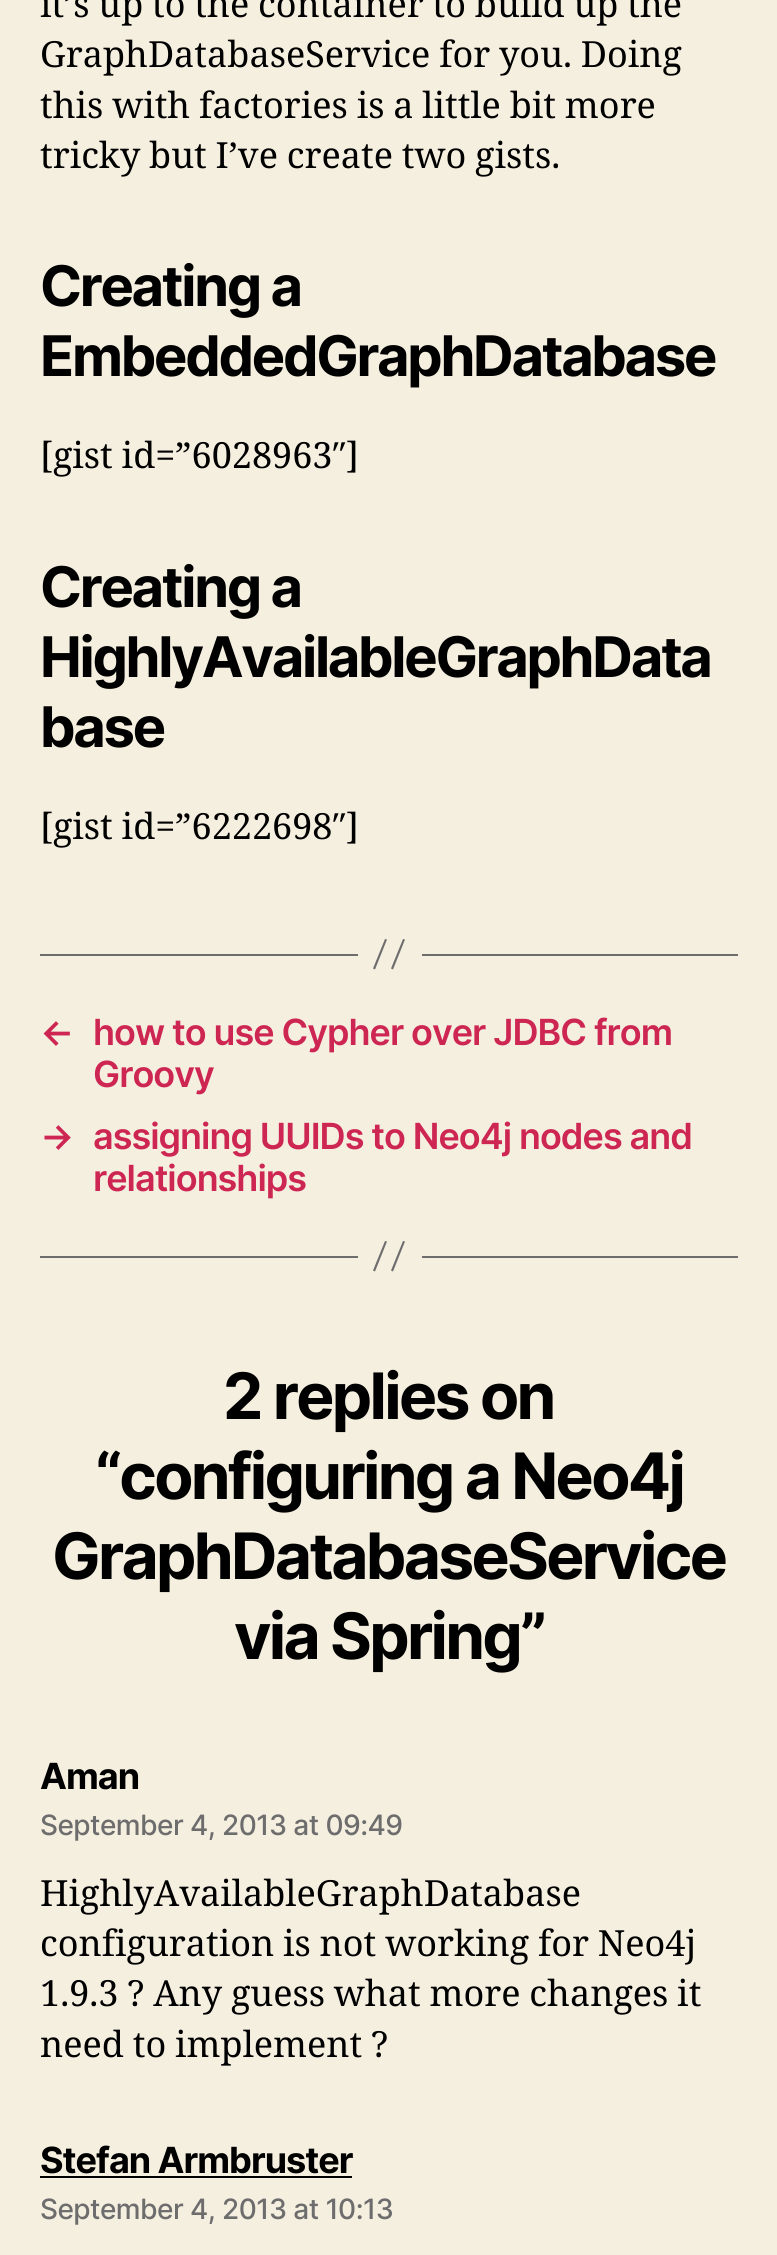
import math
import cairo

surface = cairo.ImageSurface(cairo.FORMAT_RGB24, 777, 2255)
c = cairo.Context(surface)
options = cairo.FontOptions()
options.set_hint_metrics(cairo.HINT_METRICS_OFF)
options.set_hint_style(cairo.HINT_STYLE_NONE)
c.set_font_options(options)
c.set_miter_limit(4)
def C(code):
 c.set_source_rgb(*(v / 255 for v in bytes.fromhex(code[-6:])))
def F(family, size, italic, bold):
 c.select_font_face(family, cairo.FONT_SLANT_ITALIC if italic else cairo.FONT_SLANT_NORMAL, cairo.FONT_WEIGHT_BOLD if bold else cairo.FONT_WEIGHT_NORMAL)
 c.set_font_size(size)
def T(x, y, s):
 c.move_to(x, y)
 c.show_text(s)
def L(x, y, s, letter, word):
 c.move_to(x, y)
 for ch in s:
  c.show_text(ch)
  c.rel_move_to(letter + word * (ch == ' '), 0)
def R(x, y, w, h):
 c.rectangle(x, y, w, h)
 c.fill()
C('f5efe0')
c.paint()
F('Noto Serif',36,0,0)
C('000000')
L(40,17,'it’s up to the container to build up the',0,-.5)
L(40,67,'GraphDatabaseService for you. Doing',0,-.5)
L(40,118,'this with factories is a little bit more',0,-.5)
L(40,168,'tricky but I’ve create two gists.',0,-.5)
F('Inter',56,0,1)
L(40,306,'Creating a',-2.3,0)
L(40,376,'EmbeddedGraphDatabase',-2.3,0)
F('Noto Serif',36,0,0)
L(40,468,'[gist id=”6028963″]',0,-.5)
F('Inter',56,0,1)
L(40,607,'Creating a',-2.3,0)
L(40,677,'HighlyAvailableGraphData',-2.3,0)
L(40,747,'base',-2.3,0)
F('Noto Serif',36,0,0)
L(40,839,'[gist id=”6222698″]',0,-.5)
C('6d6d6d')
R(422,954,316,2)
R(40,954,318,2)
c.new_path()
c.move_to(385,939)
c.line_to(387,939.5)
c.line_to(375,969.5)
c.line_to(373,968.5)
c.close_path()
c.move_to(403,939)
c.line_to(405,939.5)
c.line_to(393,969.5)
c.line_to(391,968.5)
c.close_path()
c.fill()
F('Inter SemiBold',36,0,0)
C('cd2653')
L(40,1045,'←',-1,0)
L(93,1045,'how to use Cypher over JDBC from',-1,0)
L(93,1087,'Groovy',-1,0)
L(40,1149,'→',-1,0)
L(93,1149,'assigning UUIDs to Neo4j nodes and',-1,0)
L(93,1191,'relationships',-1,0)
C('6d6d6d')
R(422,1256,316,2)
R(40,1256,318,2)
c.new_path()
c.move_to(385,1241)
c.line_to(387,1241.5)
c.line_to(375,1271.5)
c.line_to(373,1270.5)
c.close_path()
c.move_to(403,1241)
c.line_to(405,1241.5)
c.line_to(393,1271.5)
c.line_to(391,1270.5)
c.close_path()
c.fill()
F('Inter',64,0,1)
C('000000')
L(223,1419,'2 replies on',-2.7,0)
L(95,1499,'“configuring a Neo4j',-2.7,0)
L(52,1579,'GraphDatabaseService',-2.7,0)
L(234,1659,'via Spring”',-2.7,0)
F('Inter',36,0,1)
L(40,1789,'Aman',-1,0)
F('Inter Medium',28,0,0)
C('6d6d6d')
L(40,1835,'September 4, 2013 at 09:49',-.55,0)
F('Noto Serif',36,0,0)
C('000000')
T(40,1906,'HighlyAvailableGraphDatabase')
L(40,1956,'configuration is not working for Neo4j',0,-.5)
L(40,2006,'1.9.3 ? Any guess what more changes it',0,-.5)
L(40,2057,'need to implement ?',0,-.5)
F('Inter',36,0,1)
L(40,2173,'Stefan Armbruster',-1,0)
R(40,2176,312,2)
F('Inter Medium',28,0,0)
C('6d6d6d')
L(40,2219,'September 4, 2013 at 10:13',-.55,0)
surface.write_to_png('o.png')
